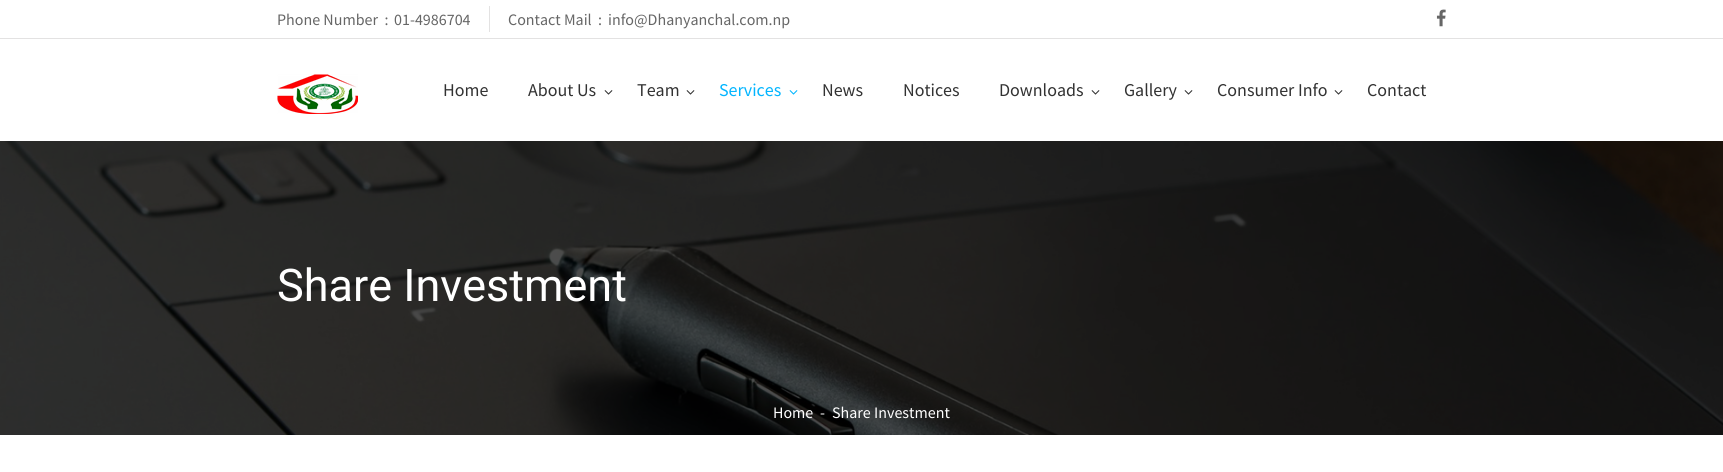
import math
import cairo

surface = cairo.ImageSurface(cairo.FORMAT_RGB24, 1723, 472)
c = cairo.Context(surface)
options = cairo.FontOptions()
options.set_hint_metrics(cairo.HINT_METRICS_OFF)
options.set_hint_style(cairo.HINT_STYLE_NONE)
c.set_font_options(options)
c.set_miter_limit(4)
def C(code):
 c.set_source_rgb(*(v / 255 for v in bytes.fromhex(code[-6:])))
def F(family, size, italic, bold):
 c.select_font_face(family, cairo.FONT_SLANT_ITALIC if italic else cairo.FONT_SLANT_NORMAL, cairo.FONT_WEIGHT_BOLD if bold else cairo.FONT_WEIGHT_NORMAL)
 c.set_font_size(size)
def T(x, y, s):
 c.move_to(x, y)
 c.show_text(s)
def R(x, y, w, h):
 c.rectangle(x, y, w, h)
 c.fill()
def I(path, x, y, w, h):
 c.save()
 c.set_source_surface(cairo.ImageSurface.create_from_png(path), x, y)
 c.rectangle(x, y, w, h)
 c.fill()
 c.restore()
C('ffffff')
c.paint()
C('e3e2e2')
R(0,38,1723,1)
R(489,6,1,26)
F('Source Sans Pro',16,0,0)
C('666666')
T(277,25,'Phone Number  :')
T(394,25,'01-4986704')
T(508,25,'Contact Mail  :')
T(608,25,'info@Dhanyanchal.com.np')
I('1.png',1436,9,10,18)
I('2.png',277,74,81,40)
F('Source Sans Pro',18,0,0)
C('323232')
T(443,96,'Home')
T(528,96,'About Us')
I('3.png',604,90,9,5)
T(637,96,'Team')
I('3.png',686,90,9,5)
C('02b5ff')
T(719,96,'Services')
I('4.png',789,90,9,5)
C('323232')
T(822,96,'News')
T(903,96,'Notices')
T(999,96,'Downloads')
I('3.png',1091,90,9,5)
T(1124,96,'Gallery')
I('3.png',1184,90,9,5)
T(1217,96,'Consumer Info')
I('3.png',1334,90,9,5)
T(1367,96,'Contact')
I('5.png',0,141,1723,294)
F('Roboto',45,0,0)
C('ffffff')
T(277,301,'Share Investment')
F('Source Sans Pro',16,0,0)
T(773,418,'Home')
T(820,418,'-')
T(832,418,'Share Investment')
surface.write_to_png('o.png')
